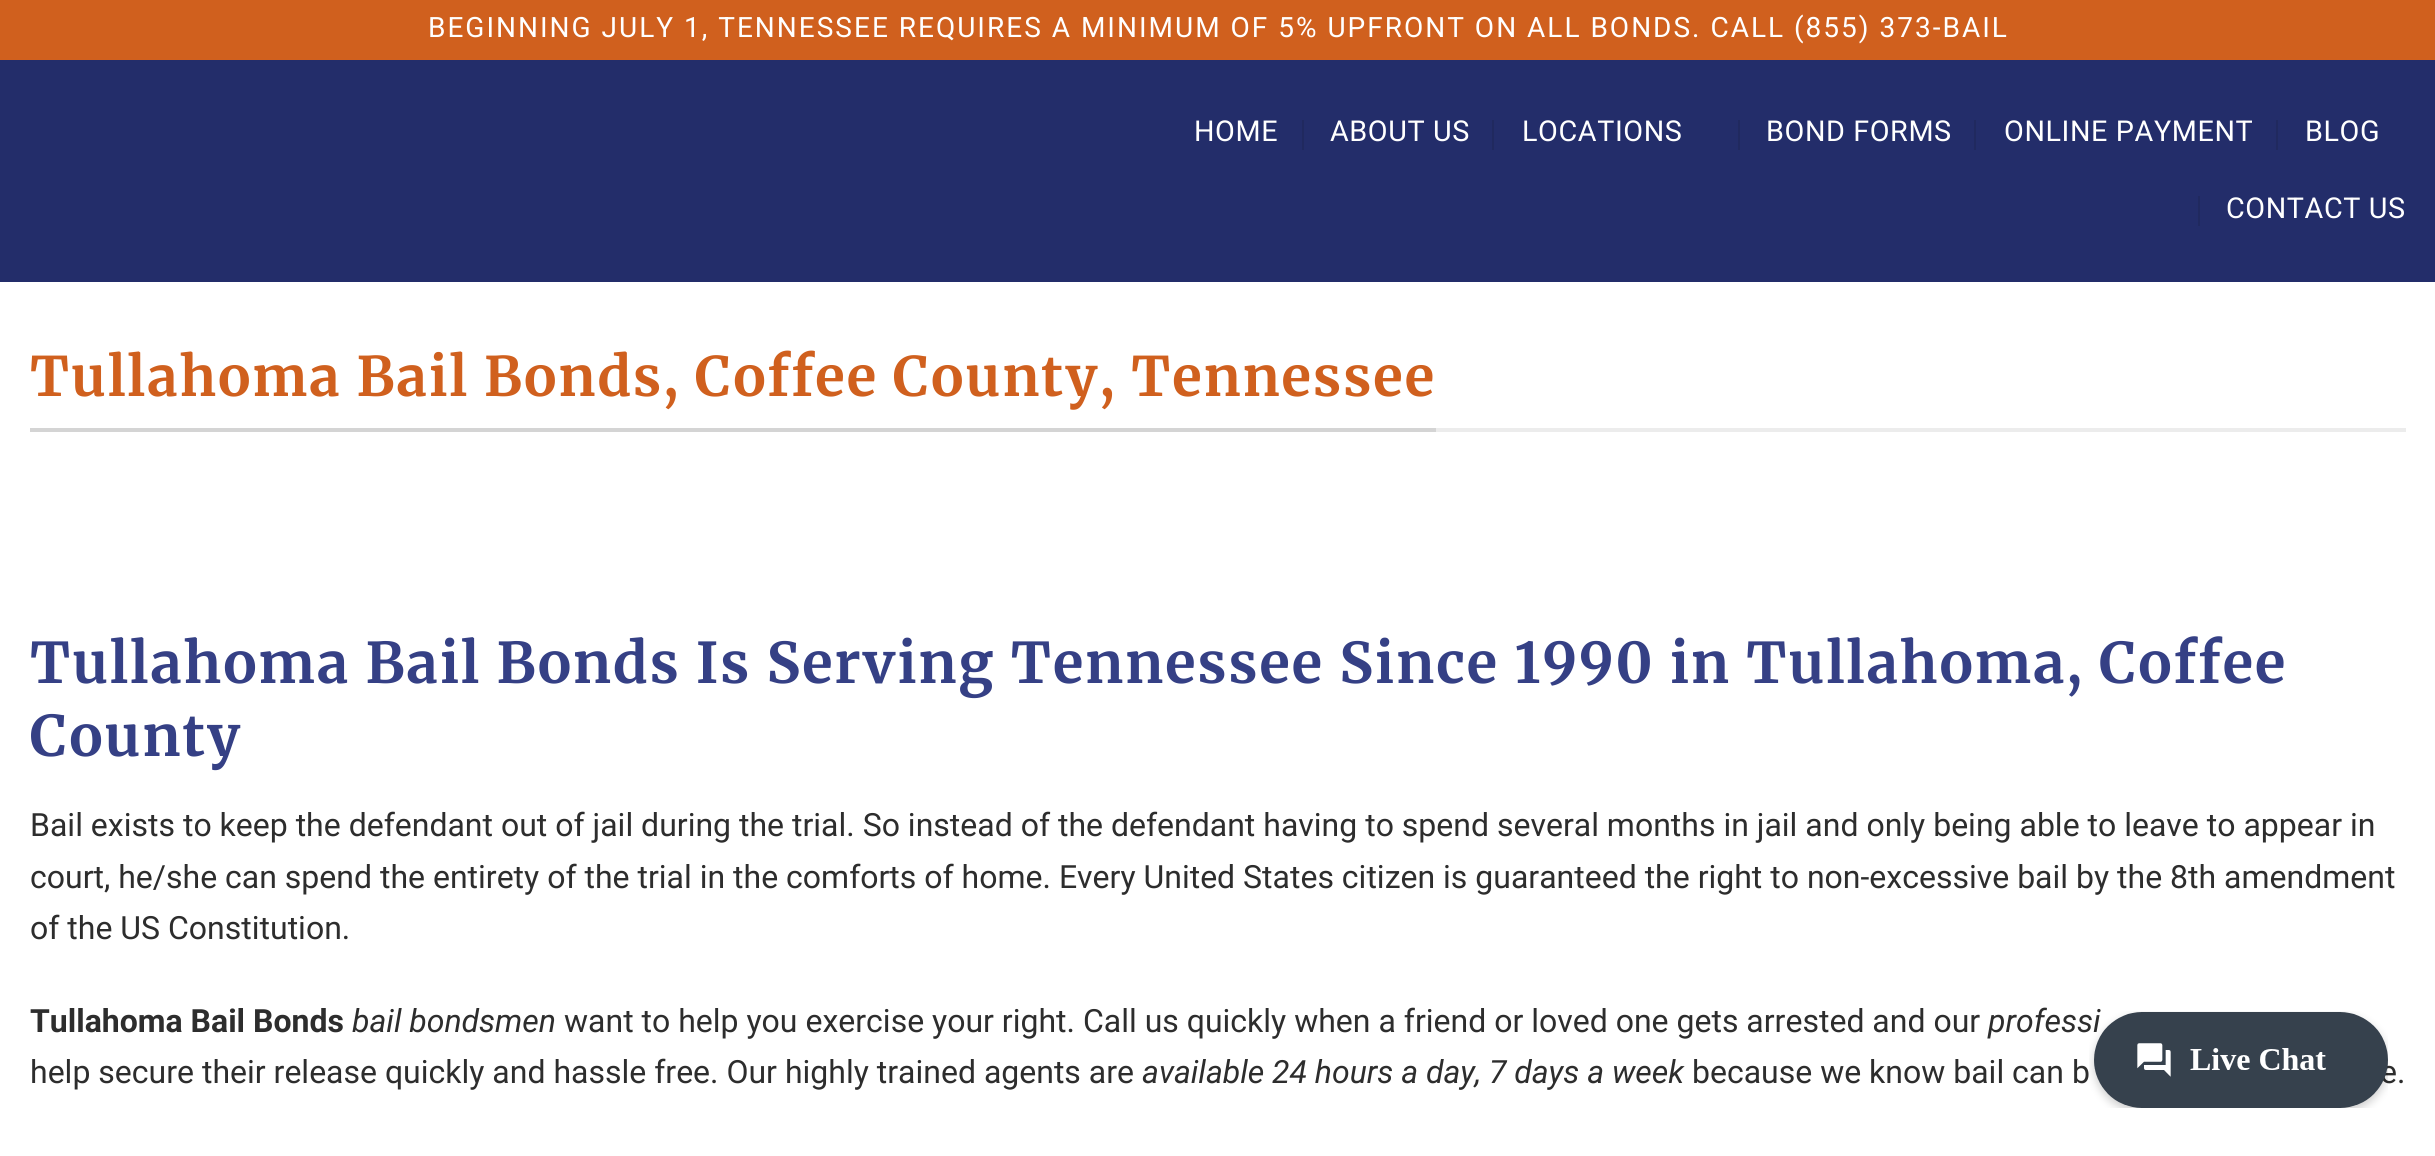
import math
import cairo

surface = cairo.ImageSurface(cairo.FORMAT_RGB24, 2435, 1156)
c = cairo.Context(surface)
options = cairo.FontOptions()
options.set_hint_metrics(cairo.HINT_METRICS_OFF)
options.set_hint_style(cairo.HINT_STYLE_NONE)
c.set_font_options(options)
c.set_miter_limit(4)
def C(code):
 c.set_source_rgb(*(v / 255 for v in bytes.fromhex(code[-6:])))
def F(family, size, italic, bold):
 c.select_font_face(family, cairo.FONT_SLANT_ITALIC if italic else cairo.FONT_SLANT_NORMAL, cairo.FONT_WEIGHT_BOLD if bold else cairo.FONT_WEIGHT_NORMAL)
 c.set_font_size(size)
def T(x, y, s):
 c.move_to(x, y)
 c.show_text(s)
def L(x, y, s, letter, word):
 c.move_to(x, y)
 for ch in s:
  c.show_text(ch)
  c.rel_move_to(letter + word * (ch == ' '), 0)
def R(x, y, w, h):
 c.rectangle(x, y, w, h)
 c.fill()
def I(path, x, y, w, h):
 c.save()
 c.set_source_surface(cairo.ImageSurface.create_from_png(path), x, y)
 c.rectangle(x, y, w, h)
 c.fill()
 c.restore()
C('ffffff')
c.paint()
C('d0601e')
R(0,0,2435,60)
F('Roboto',28,0,0)
C('ffffff')
L(428,37,'BEGINNING JULY 1, TENNESSEE REQUIRES A MINIMUM OF 5% UPFRONT ON ALL BONDS. CALL (855) 373-BAIL',2,0)
C('232d6a')
R(0,60,2435,222)
F('Roboto',28.75,0,0)
C('ffffff')
L(1194,141,'HOME',.6,0)
C('20295f')
R(1302,120,2,30)
C('ffffff')
L(1330,141,'ABOUT US',.6,0)
C('20295f')
R(1492,120,2,30)
C('ffffff')
L(1522,141,'LOCATIONS',.6,0)
C('20295f')
R(1738,120,2,30)
C('ffffff')
L(1766,141,'BOND FORMS',.6,0)
C('20295f')
R(1974,120,2,30)
C('ffffff')
L(2004,141,'ONLINE PAYMENT',.6,0)
C('20295f')
R(2276,120,2,30)
C('ffffff')
L(2305,141,'BLOG',.6,0)
C('20295f')
R(2198,196,2,30)
C('ffffff')
L(2226,218,'CONTACT US',.6,0)
C('ececec')
R(1436,428,970,4)
C('d4d4d4')
R(30,428,1406,4)
F('Merriweather',54.4,0,1)
C('d0601e')
L(30,396,'Tullahoma Bail Bonds, Coffee County, Tennessee',2,0)
F('Merriweather',56,0,1)
C('354085')
L(30,683,'Tullahoma Bail Bonds Is Serving Tennessee Since 1990 in Tullahoma, Coffee',2,0)
L(30,756,'County',2,0)
F('Roboto',32,0,0)
C('2d2d2d')
T(30,836,'Bail exists to keep the defendant out of jail during the trial. So instead of the defendant having to spend several months in jail and only being able to leave to appear in')
T(30,888,'court, he/she can spend the entirety of the trial in the comforts of home. Every United States citizen is guaranteed the right to non-excessive bail by the 8th amendment')
T(30,939,'of the US Constitution.')
F('Roboto',32,0,1)
T(30,1032,'Tullahoma Bail Bonds')
F('Roboto',32,1,0)
T(352,1032,'bail bondsmen')
F('Roboto',32,0,0)
T(564,1032,'want to help you exercise your right. Call us quickly when a friend or loved one gets arrested and our')
F('Roboto',32,1,0)
T(1988,1032,'professi')
F('Roboto',32,0,0)
T(30,1083,'help secure their release quickly and hassle free. Our highly trained agents are')
F('Roboto',32,1,0)
T(1142,1083,'available 24 hours a day, 7 days a week')
F('Roboto',32,0,0)
T(1692,1083,'because we know bail can b')
T(2380,1083,'e.')
I('1.png',2089,1011,299,97)
surface.write_to_png('o.png')
